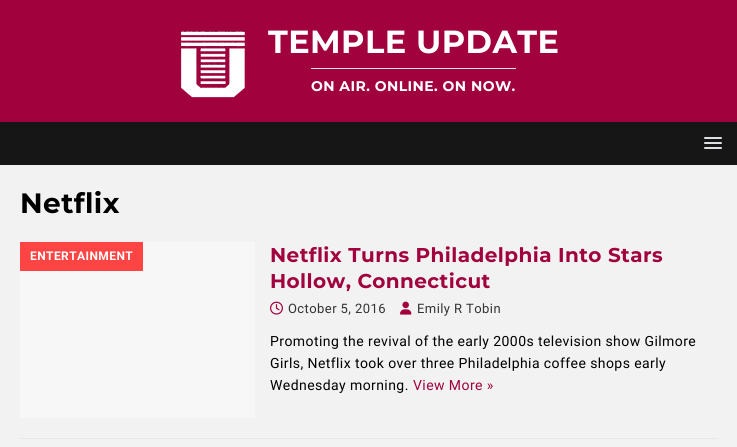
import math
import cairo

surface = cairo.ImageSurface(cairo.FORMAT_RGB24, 737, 447)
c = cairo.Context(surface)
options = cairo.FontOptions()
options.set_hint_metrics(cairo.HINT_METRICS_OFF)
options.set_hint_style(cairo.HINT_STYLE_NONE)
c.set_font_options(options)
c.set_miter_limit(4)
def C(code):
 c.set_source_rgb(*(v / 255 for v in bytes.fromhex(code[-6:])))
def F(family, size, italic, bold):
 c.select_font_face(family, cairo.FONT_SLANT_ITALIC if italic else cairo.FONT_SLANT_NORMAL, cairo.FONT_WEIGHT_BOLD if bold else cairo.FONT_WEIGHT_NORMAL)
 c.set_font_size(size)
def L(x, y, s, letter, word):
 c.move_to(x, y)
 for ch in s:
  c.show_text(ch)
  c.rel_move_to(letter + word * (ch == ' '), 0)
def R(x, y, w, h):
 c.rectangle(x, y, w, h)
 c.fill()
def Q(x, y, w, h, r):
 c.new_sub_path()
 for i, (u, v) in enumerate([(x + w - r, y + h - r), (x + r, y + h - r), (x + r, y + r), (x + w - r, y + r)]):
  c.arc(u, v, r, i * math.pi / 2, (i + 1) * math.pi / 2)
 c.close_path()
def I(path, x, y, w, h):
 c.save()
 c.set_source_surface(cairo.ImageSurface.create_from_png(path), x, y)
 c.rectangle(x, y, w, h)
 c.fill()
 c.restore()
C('f2f2f2')
c.paint()
C('a1013d')
R(0,0,737,122)
I('1.png',180,31,65,67)
F('Montserrat',32,0,1)
C('ffffff')
L(268,53,'TEMPLE UPDATE',.42,0)
C('e5e5e5')
R(311,68,205,1)
F('Montserrat',14,0,1)
C('ffffff')
L(311,91,'ON AIR. ONLINE. ON NOW.',.42,0)
C('171616')
R(0,122,737,43)
C('dddfe2')
Q(704,137,18,2,1)
c.fill()
Q(704,142,18,2,1)
c.fill()
Q(704,147,18,2,1)
c.fill()
F('Montserrat',28,0,1)
C('000000')
L(20,213,'Netflix',.42,0)
c.new_path()
c.move_to(20,438.5)
c.line_to(717,438.5)
C('dddddd')
c.set_line_width(1)
c.set_dash([1,1])
c.stroke()
C('f7f7f7')
R(20,242,235,176)
C('ff4444')
R(20,242,123,29)
F('Roboto',12,0,1)
C('ffffff')
L(30,260,'ENTERTAINMENT',.42,0)
F('Montserrat',20,0,1)
C('a1013d')
L(270,262,'Netflix Turns Philadelphia Into Stars',.42,0)
L(270,288,'Hollow, Connecticut',.42,0)
I('2.png',270,301,13,14)
F('Roboto',13,0,0)
C('333333')
L(288,313,'October 5, 2016',.42,0)
I('3.png',400,301,12,14)
L(417,313,'Emily R Tobin',.42,0)
F('Roboto',14,0,0)
C('000000')
L(270,346,'Promoting the revival of the early 2000s television show Gilmore',.42,0)
L(270,368,'Girls, Netflix took over three Philadelphia coffee shops early',.42,0)
L(270,390,'Wednesday morning.',.42,0)
C('a1013d')
L(413,390,'View More »',.42,0)
surface.write_to_png('o.png')
